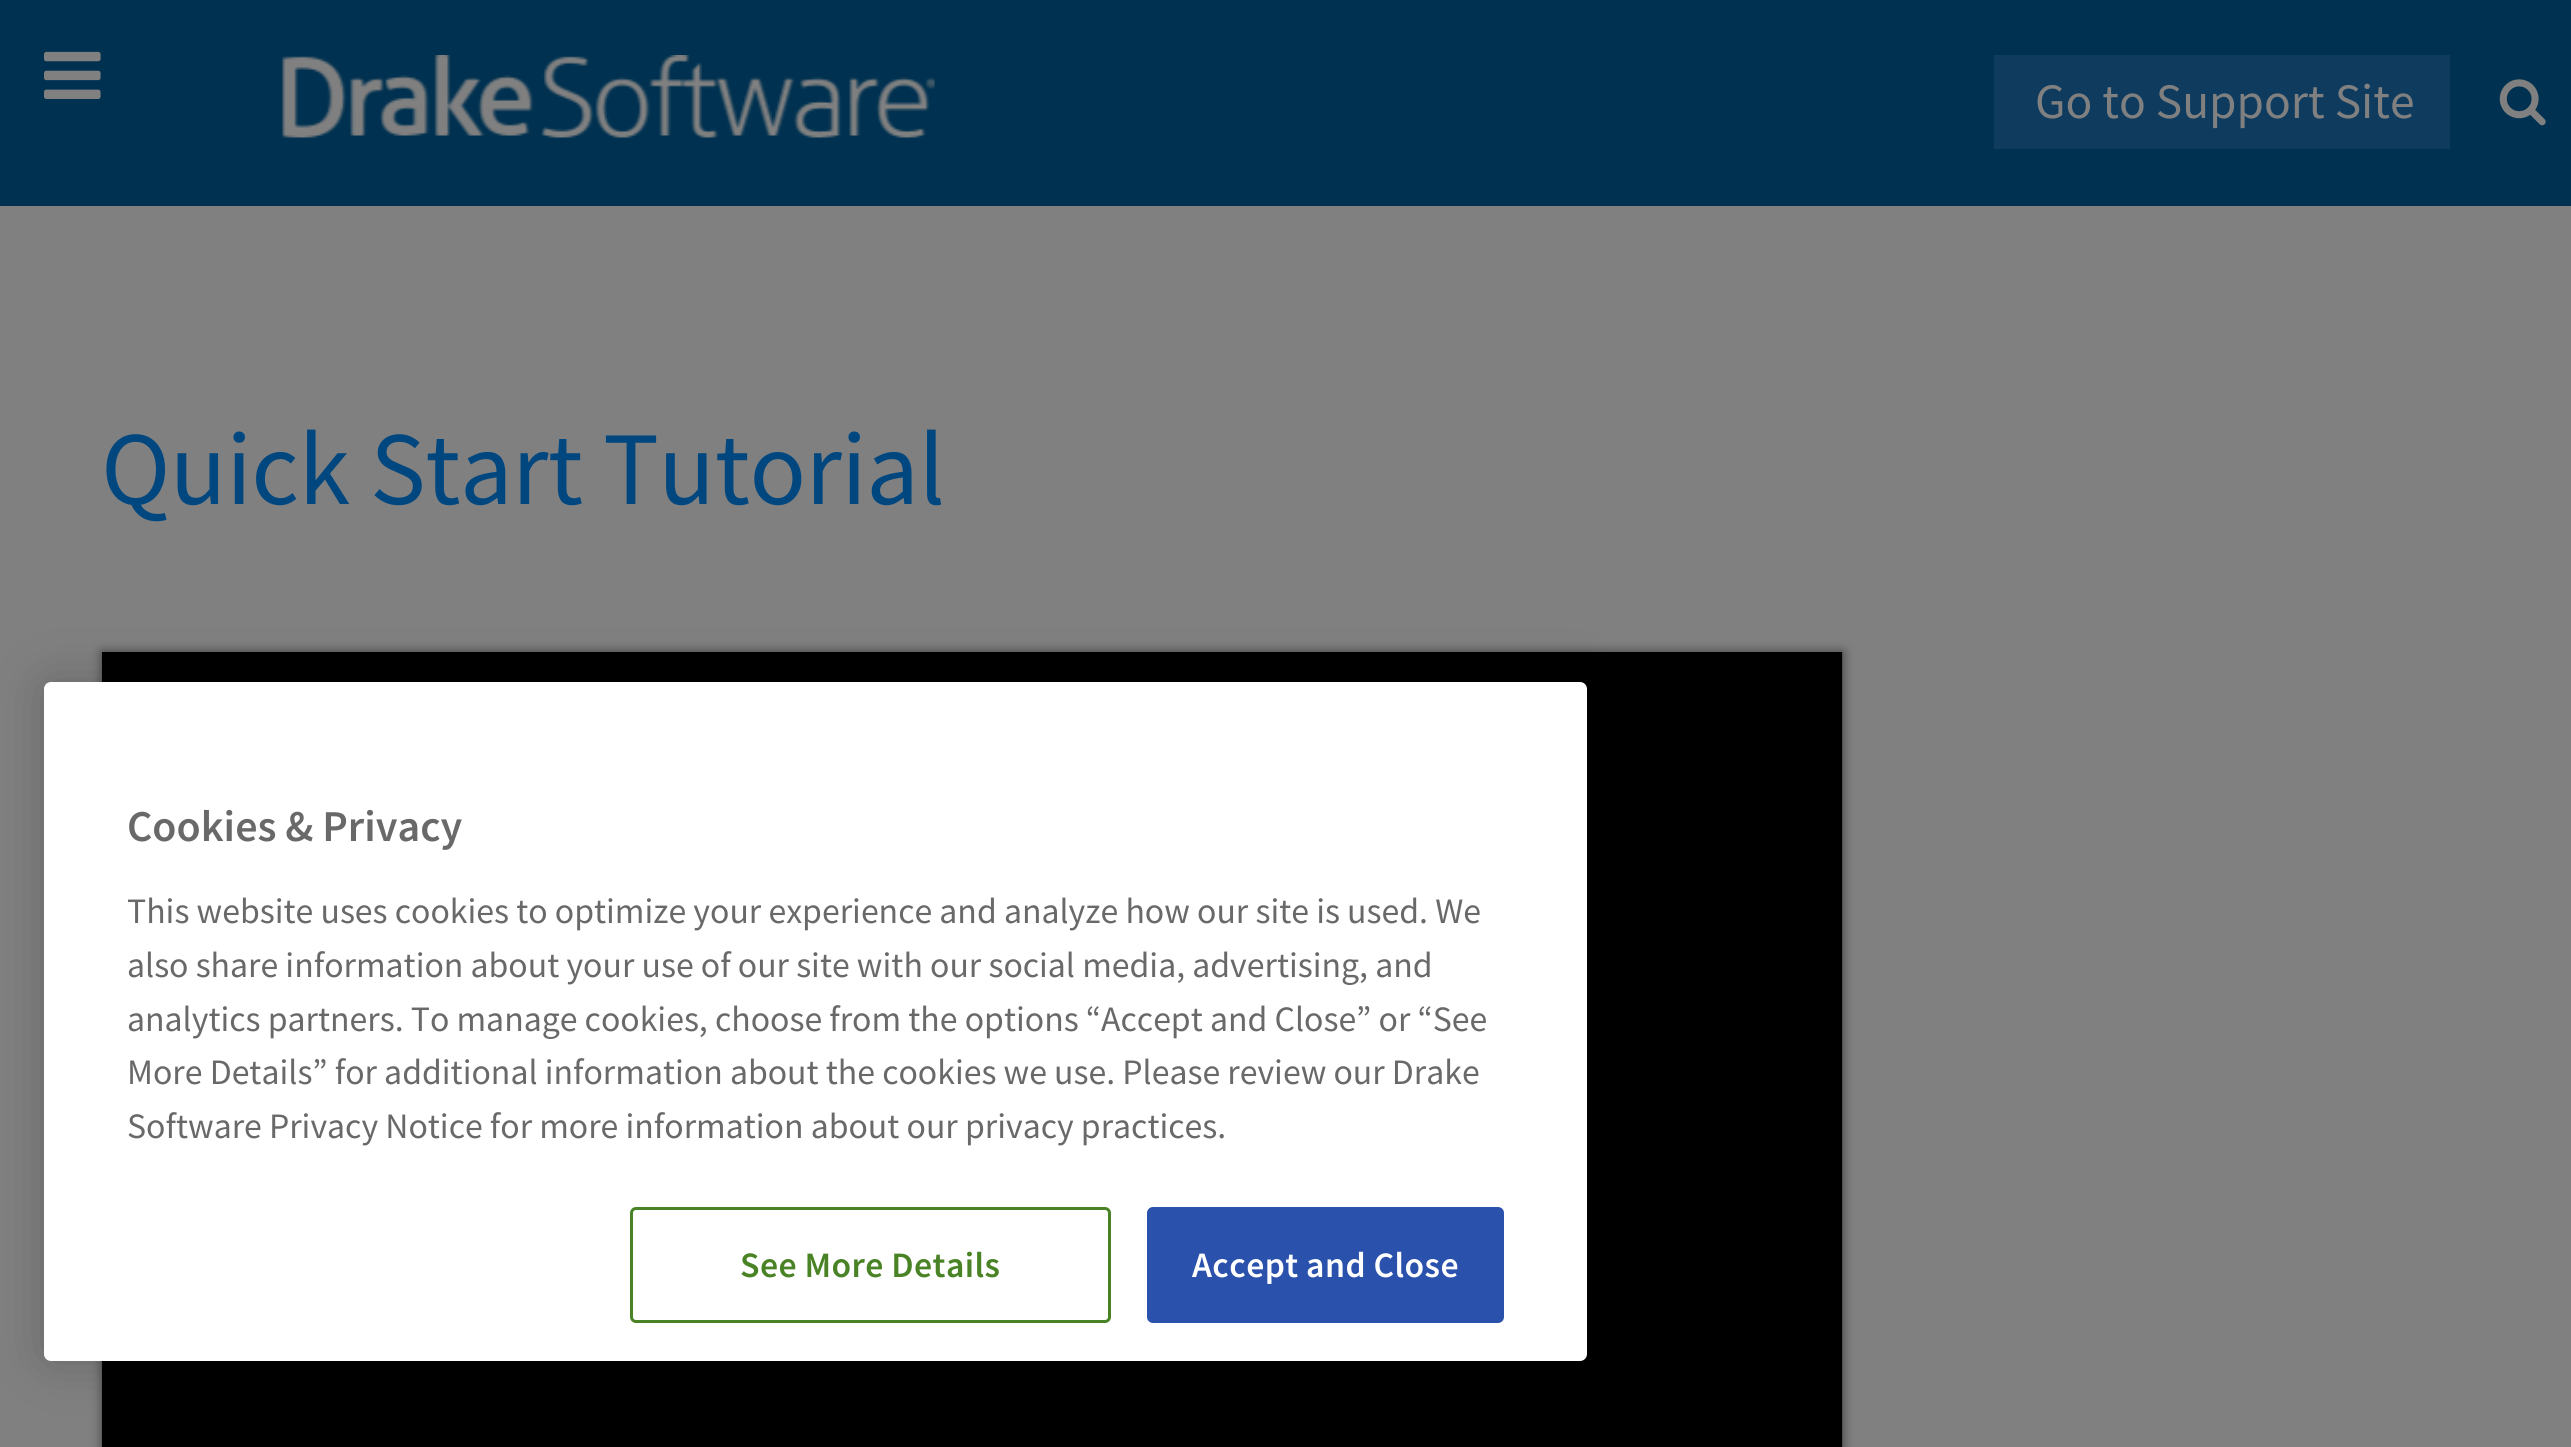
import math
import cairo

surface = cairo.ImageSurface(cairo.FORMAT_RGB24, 2571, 1447)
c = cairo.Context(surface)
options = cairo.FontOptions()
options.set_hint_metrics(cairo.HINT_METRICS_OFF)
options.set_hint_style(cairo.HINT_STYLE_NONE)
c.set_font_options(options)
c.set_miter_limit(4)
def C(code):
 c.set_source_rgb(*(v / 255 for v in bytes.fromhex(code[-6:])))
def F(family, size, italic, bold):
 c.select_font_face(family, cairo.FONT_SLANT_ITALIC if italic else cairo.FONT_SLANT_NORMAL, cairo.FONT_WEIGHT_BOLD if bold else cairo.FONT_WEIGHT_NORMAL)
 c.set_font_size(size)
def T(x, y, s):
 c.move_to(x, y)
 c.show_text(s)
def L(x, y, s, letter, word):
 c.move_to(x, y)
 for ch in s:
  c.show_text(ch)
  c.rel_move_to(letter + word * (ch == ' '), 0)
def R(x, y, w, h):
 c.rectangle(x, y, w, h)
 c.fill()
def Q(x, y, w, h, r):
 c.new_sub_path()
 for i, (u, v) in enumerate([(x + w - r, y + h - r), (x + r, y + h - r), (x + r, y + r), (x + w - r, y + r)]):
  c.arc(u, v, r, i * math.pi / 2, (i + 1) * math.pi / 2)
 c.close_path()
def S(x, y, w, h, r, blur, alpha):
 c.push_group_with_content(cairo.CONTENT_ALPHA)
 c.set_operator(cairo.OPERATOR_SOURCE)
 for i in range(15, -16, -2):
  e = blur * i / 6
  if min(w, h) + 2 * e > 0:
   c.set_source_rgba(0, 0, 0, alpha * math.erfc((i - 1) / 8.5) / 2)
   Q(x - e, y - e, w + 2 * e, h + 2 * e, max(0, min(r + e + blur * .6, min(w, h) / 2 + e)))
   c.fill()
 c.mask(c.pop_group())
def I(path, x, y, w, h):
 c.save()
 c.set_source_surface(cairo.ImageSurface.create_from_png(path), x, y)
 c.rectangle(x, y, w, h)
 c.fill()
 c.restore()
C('808080')
c.paint()
C('003150')
R(0,0,2571,206)
I('1.png',44,51,57,48)
I('2.png',282,55,653,83)
C('0e3b5e')
R(1994,55,456,94)
F('Source Sans Pro',49.5,0,0)
C('808080')
T(2035,118,'Go to Support Site')
I('3.png',2499,79,47,47)
F('Source Sans Pro',104.5,0,0)
C('004780')
L(101,504,'Quick Start Tutorial',-.55,0)
C('000000')
S(102,652,1741,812,0,5.5,.5)
I('4.png',102,652,1741,795)
S(44,682,1543,679,7,25,.2)
C('ffffff')
Q(44,682,1543,679,7)
c.fill()
F('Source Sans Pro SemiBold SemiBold',44,0,0)
C('696969')
T(127,841,'Cookies & Privacy')
F('Source Sans Pro',35.75,0,0)
T(127,923,'This website uses cookies to optimize your experience and analyze how our site is used. We')
T(127,977,'also share information about your use of our site with our social media, advertising, and')
T(127,1031,'analytics partners. To manage cookies, choose from the options “Accept and Close” or “See')
T(127,1084,'More Details” for additional information about the cookies we use. Please review our Drake')
T(127,1138,'Software Privacy Notice for more information about our privacy practices.')
Q(631.5,1208.5,478,113,4.5)
C('4a8325')
c.set_line_width(3)
c.stroke()
F('Source Sans Pro SemiBold SemiBold',35.75,0,0)
L(740,1277,'See More Details',.4,0)
C('2a51ac')
Q(1148.5,1208.5,354,113,4.5)
c.fill_preserve()
c.stroke()
C('ffffff')
L(1192,1277,'Accept and Close',.4,0)
surface.write_to_png('o.png')
